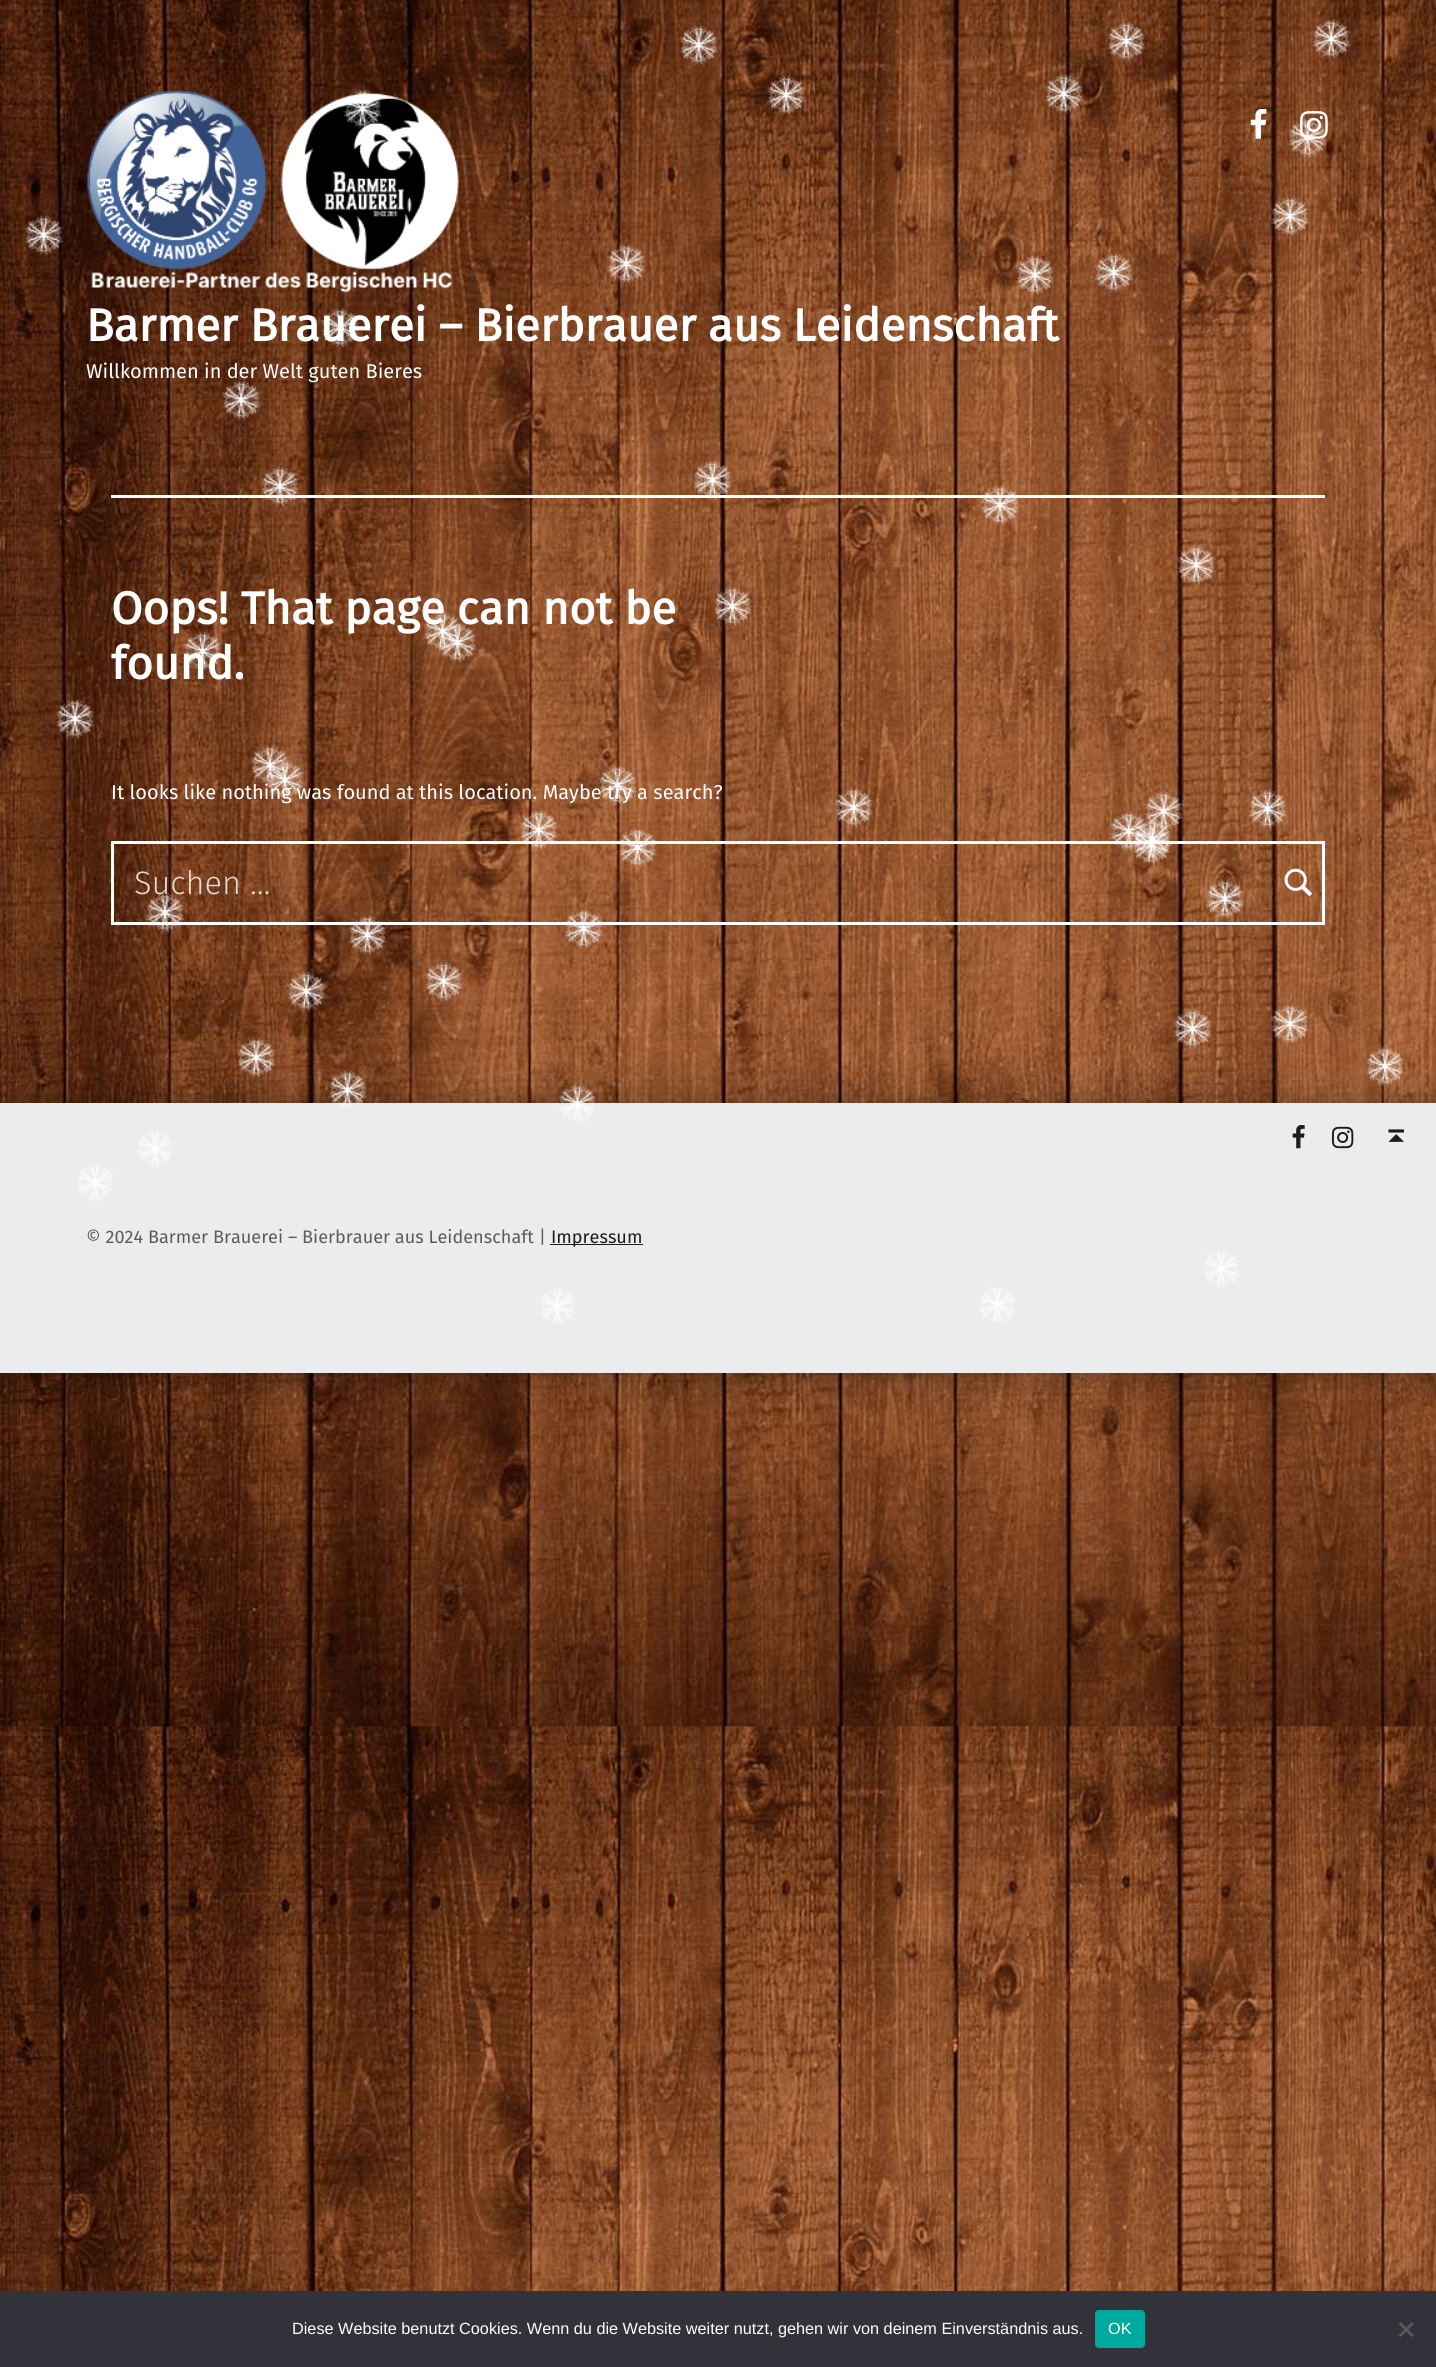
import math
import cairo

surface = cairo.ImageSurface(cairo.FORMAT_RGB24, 1436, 2367)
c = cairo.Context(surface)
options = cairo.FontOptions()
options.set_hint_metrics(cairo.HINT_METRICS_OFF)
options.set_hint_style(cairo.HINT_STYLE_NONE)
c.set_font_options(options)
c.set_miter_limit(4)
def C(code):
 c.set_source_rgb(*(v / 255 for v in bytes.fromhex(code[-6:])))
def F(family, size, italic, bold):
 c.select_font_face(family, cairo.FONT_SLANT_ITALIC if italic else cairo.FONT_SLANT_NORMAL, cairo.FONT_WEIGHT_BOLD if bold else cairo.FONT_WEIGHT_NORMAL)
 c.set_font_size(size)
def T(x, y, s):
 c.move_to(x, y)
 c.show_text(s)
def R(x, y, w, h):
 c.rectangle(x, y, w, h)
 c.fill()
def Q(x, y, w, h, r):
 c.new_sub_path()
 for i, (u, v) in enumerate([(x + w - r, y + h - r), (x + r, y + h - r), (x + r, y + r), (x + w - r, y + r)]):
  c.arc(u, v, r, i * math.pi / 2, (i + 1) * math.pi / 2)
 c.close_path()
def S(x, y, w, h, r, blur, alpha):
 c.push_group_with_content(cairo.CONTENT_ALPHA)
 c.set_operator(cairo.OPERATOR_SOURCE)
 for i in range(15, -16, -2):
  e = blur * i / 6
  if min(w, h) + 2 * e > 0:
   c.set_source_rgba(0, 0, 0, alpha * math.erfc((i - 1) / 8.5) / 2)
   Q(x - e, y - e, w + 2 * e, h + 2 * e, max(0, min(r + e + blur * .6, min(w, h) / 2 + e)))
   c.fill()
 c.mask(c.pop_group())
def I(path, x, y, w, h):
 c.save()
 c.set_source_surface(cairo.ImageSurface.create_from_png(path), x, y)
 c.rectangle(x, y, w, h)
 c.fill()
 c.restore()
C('ffffff')
c.paint()
I('1.png',0,0,1436,2291)
I('2.png',680,25,38,40)
I('3.png',1107,21,39,41)
I('4.png',1312,19,39,40)
I('16.png',87,90,372,203)
I('5.png',343,89,39,40)
I('6.png',767,75,39,40)
I('7.png',1045,74,38,40)
I('15.png',1300,111,28,28)
I('8.png',1288,117,39,41)
I('9.png',25,215,38,40)
I('10.png',1271,196,38,41)
I('11.png',607,244,39,40)
I('12.png',1016,255,38,40)
I('13.png',1095,252,38,41)
I('14.png',1250,109,17,30)
F('Fira Sans',45.6,0,1)
C('ffffff')
T(86,341,'Barmer Brauerei – Bierbrauer aus Leidenschaft')
F('Fira Sans',20,0,0)
T(86,378,'Willkommen in der Welt guten Bieres')
R(111,495,1214,3)
F('Fira Sans',45.6,0,1)
T(111,624,'Oops! That page can not be')
T(111,679,'found.')
F('Fira Sans',20,0,0)
T(111,799,'It looks like nothing was found at this location. Maybe try a search?')
c.rectangle(112.5,842.5,1211,81)
c.set_line_width(3)
c.stroke()
F('Fira Sans Light',32.5,0,0)
C('e3d8d2')
T(134,894,'Suchen …')
I('17.png',1284,868,29,29)
C('000000')
S(0,1103,1436,270,0,20,.4)
C('eaecee')
R(0,1103,1436,270)
I('18.png',1292,1125,13,24)
I('19.png',1331,1126,23,23)
I('20.png',1388,1129,17,13)
F('Fira Sans',18.1,0,0)
C('5a5c5e')
T(86,1243,'© 2024 Barmer Brauerei – Bierbrauer aus Leidenschaft |')
C('1a1c1e')
R(550,1244,93,1)
T(551,1243,'Impressum')
I('21.png',321,307,38,41)
I('22.png',222,380,39,40)
I('23.png',261,466,38,41)
I('24.png',693,460,39,40)
I('25.png',981,485,38,40)
I('26.png',1177,545,39,40)
I('27.png',713,586,39,41)
I('28.png',423,611,39,41)
I('29.png',183,631,39,41)
I('30.png',438,622,39,41)
I('31.png',56,699,38,40)
I('32.png',251,745,38,40)
I('33.png',266,760,38,40)
I('34.png',520,810,38,40)
I('35.png',598,765,39,40)
I('36.png',835,787,38,41)
I('42.png',1132,825,39,40)
I('40.png',1133,819,39,40)
I('38.png',1145,791,38,40)
I('37.png',1110,811,38,41)
I('39.png',1248,789,39,40)
I('41.png',618,827,39,41)
I('43.png',146,892,38,41)
I('44.png',348,915,39,40)
I('45.png',565,909,38,40)
I('46.png',1206,879,38,40)
I('47.png',287,971,39,41)
I('48.png',425,961,38,41)
I('49.png',1173,1009,39,40)
I('50.png',1271,1004,38,40)
I('51.png',237,1037,39,41)
I('52.png',328,1070,39,39)
I('53.png',558,1084,39,39)
I('54.png',1366,1046,38,41)
I('55.png',137,1130,36,38)
I('56.png',77,1164,36,37)
I('57.png',1203,1250,37,38)
I('58.png',539,1288,37,37)
I('59.png',979,1286,37,38)
C('32323a')
R(0,2291,1436,76)
F('Liberation Sans',16.25,0,0)
C('ffffff')
T(292,2334,'Diese Website benutzt Cookies. Wenn du die Website weiter nutzt, gehen wir von deinem Einverständnis aus.')
C('00a99d')
Q(1095,2310,50,38,4)
c.fill()
C('ffffff')
T(1108,2334,'OK')
C('59595d')
c.new_path()
c.move_to(1412,2322)
c.line_to(1414,2324)
c.line_to(1400.5,2337)
c.line_to(1398.5,2335.5)
c.close_path()
c.fill()
c.new_path()
c.move_to(1398.5,2324)
c.line_to(1400.5,2322)
c.line_to(1414,2335.5)
c.line_to(1412,2337)
c.close_path()
c.fill()
surface.write_to_png('o.png')
